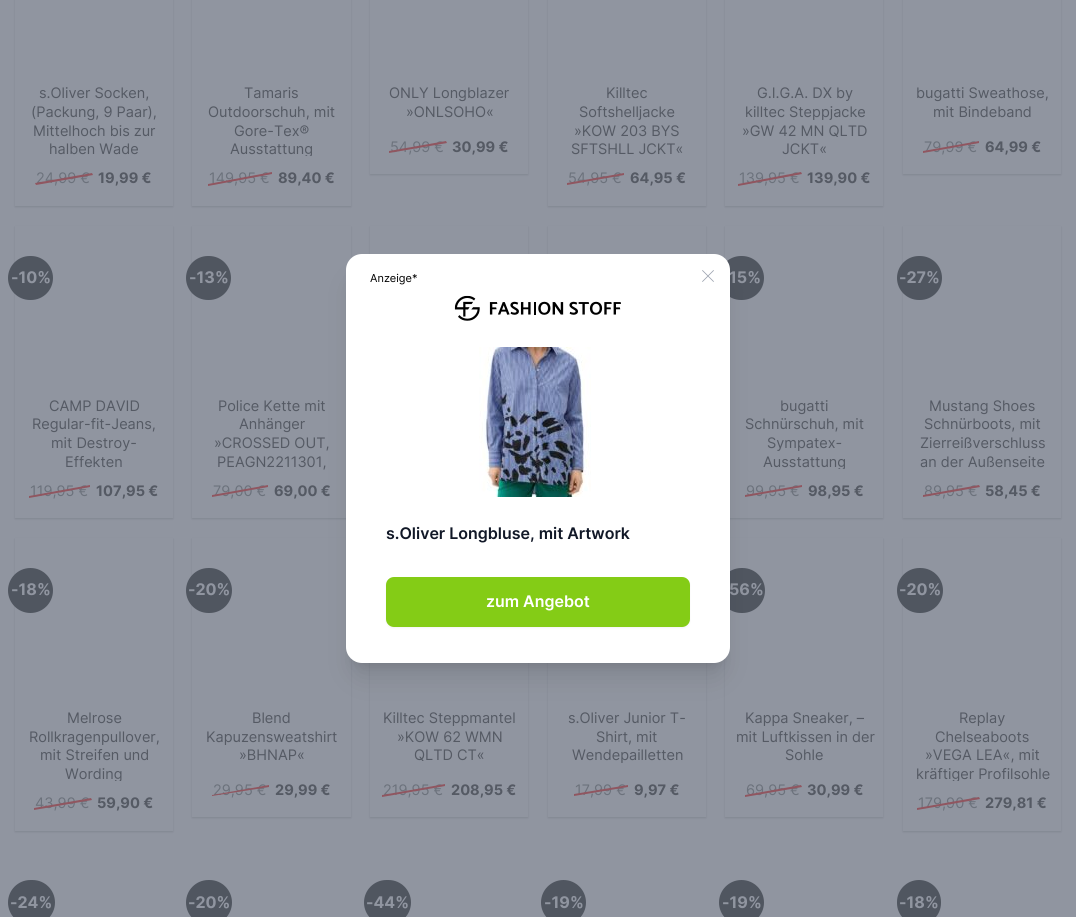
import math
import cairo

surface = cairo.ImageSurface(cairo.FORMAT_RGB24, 1076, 917)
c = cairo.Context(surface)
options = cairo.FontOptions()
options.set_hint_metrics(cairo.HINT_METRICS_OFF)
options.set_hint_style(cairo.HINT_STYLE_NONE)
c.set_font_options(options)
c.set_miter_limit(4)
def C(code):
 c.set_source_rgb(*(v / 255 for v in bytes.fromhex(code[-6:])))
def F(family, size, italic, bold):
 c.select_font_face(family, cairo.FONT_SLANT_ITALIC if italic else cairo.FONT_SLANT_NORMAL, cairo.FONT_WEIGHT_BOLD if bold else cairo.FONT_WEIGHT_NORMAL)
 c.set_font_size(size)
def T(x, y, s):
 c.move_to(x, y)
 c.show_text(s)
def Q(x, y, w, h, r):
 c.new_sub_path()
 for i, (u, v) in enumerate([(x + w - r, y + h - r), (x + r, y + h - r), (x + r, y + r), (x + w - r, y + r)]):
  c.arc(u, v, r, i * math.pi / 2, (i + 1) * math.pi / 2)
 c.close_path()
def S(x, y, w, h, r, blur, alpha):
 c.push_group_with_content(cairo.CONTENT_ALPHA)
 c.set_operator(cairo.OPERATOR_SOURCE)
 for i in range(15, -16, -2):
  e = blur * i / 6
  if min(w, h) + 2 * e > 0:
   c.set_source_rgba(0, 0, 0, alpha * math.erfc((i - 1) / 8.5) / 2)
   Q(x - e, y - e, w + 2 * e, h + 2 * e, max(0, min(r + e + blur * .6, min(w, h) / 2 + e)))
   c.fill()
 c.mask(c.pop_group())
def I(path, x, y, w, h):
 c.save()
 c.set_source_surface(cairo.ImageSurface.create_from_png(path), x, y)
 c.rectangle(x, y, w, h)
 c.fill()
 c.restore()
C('9095a0')
c.paint()
c.save()
c.set_fill_rule(cairo.FILL_RULE_EVEN_ODD)
c.new_path()
c.move_to(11,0)
c.line_to(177,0)
c.line_to(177,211)
c.line_to(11,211)
c.close_path()
c.move_to(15,-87)
c.line_to(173,-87)
c.line_to(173,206)
c.line_to(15,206)
c.close_path()
c.clip()
C('505660')
S(15,-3,158,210,0,1,.24)
c.restore()
F('Inter',14.5,0,0)
C('555a64')
T(39,98,'s.Oliver Socken,')
T(31,117,'(Packung, 9 Paar),')
T(33,136,'Mittelhoch bis zur')
T(49,154,'halben Wade')
C('6c727c')
T(36,183,'24,99 €')
C('905660')
c.new_path()
c.move_to(35,183)
c.line_to(92,173)
c.line_to(93,175)
c.line_to(36,185)
c.close_path()
c.fill()
F('Inter',14.5,0,1)
C('555a64')
T(98,183,'19,99 €')
c.save()
c.set_fill_rule(cairo.FILL_RULE_EVEN_ODD)
c.new_path()
c.move_to(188,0)
c.line_to(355,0)
c.line_to(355,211)
c.line_to(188,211)
c.close_path()
c.move_to(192,-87)
c.line_to(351,-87)
c.line_to(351,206)
c.line_to(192,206)
c.close_path()
c.clip()
C('505660')
S(192,-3,159,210,0,1,.24)
c.restore()
F('Inter',14.5,0,0)
T(244,98,'Tamaris')
T(208,117,'Outdoorschuh, mit')
T(234,136,'Gore-Tex®')
c.save()
c.rectangle(202,81,139,75)
c.clip()
T(230,154,'Ausstattung')
c.restore()
C('6c727c')
T(209,183,'149,95 €')
C('905660')
c.new_path()
c.move_to(208,184)
c.line_to(272,172)
c.line_to(272,174)
c.line_to(208,186)
c.close_path()
c.fill()
F('Inter',14.5,0,1)
C('555a64')
T(278,183,'89,40 €')
c.save()
c.set_fill_rule(cairo.FILL_RULE_EVEN_ODD)
c.new_path()
c.move_to(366,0)
c.line_to(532,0)
c.line_to(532,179)
c.line_to(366,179)
c.close_path()
c.move_to(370,-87)
c.line_to(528,-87)
c.line_to(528,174)
c.line_to(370,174)
c.close_path()
c.clip()
C('505660')
S(370,-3,158,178,0,1,.24)
c.restore()
F('Inter',14.5,0,0)
T(389,98,'ONLY Longblazer')
T(406,117,'»ONLSOHO«')
C('6c727c')
T(390,152,'54,99 €')
C('905660')
c.new_path()
c.move_to(389,151)
c.line_to(446,141)
c.line_to(447,143)
c.line_to(389,153)
c.close_path()
c.fill()
F('Inter',14.5,0,1)
C('555a64')
T(452,152,'30,99 €')
c.save()
c.set_fill_rule(cairo.FILL_RULE_EVEN_ODD)
c.new_path()
c.move_to(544,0)
c.line_to(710,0)
c.line_to(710,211)
c.line_to(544,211)
c.close_path()
c.move_to(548,-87)
c.line_to(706,-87)
c.line_to(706,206)
c.line_to(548,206)
c.close_path()
c.clip()
C('505660')
S(548,-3,158,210,0,1,.24)
c.restore()
F('Inter',14.5,0,0)
T(606,98,'Killtec')
T(579,117,'Softshelljacke')
T(574,136,'»KOW 203 BYS')
T(571,154,'SFTSHLL JCKT«')
C('6c727c')
T(568,183,'54,95 €')
C('905660')
c.new_path()
c.move_to(567,183)
c.line_to(624,173)
c.line_to(624,175)
c.line_to(567,185)
c.close_path()
c.fill()
F('Inter',14.5,0,1)
C('555a64')
T(630,183,'64,95 €')
c.save()
c.set_fill_rule(cairo.FILL_RULE_EVEN_ODD)
c.new_path()
c.move_to(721,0)
c.line_to(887,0)
c.line_to(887,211)
c.line_to(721,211)
c.close_path()
c.move_to(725,-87)
c.line_to(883,-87)
c.line_to(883,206)
c.line_to(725,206)
c.close_path()
c.clip()
C('505660')
S(725,-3,158,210,0,1,.24)
c.restore()
F('Inter',14.5,0,0)
T(757,98,'G.I.G.A. DX by')
T(745,117,'killtec Steppjacke')
T(742,136,'»GW 42 MN QLTD')
T(782,154,'JCKT«')
C('6c727c')
T(739,183,'139,95 €')
C('905660')
c.new_path()
c.move_to(738,184)
c.line_to(801,172)
c.line_to(802,174)
c.line_to(738,186)
c.close_path()
c.fill()
F('Inter',14.5,0,1)
C('555a64')
T(807,183,'139,90 €')
c.save()
c.set_fill_rule(cairo.FILL_RULE_EVEN_ODD)
c.new_path()
c.move_to(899,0)
c.line_to(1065,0)
c.line_to(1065,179)
c.line_to(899,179)
c.close_path()
c.move_to(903,-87)
c.line_to(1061,-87)
c.line_to(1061,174)
c.line_to(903,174)
c.close_path()
c.clip()
C('505660')
S(903,-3,158,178,0,1,.24)
c.restore()
F('Inter',14.5,0,0)
T(916,98,'bugatti Sweathose,')
T(933,117,'mit Bindeband')
C('6c727c')
T(924,152,'79,99 €')
C('905660')
c.new_path()
c.move_to(923,151)
c.line_to(979,141)
c.line_to(979,143)
c.line_to(923,153)
c.close_path()
c.fill()
F('Inter',14.5,0,1)
C('555a64')
T(985,152,'64,99 €')
c.save()
c.set_fill_rule(cairo.FILL_RULE_EVEN_ODD)
c.new_path()
c.move_to(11,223)
c.line_to(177,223)
c.line_to(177,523)
c.line_to(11,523)
c.close_path()
c.move_to(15,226)
c.line_to(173,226)
c.line_to(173,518)
c.line_to(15,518)
c.close_path()
c.clip()
C('505660')
S(15,227,158,292,0,1,.24)
c.restore()
C('505660')
Q(8,256,45,44,22)
c.fill()
F('Inter',16,0,1)
C('9095a0')
T(11,283,'-10%')
F('Inter',14.5,0,0)
C('555a64')
T(49,411,'CAMP DAVID')
T(32,429,'Regular-fit-Jeans,')
T(51,448,'mit Destroy-')
T(65,467,'Effekten')
C('6c727c')
T(30,496,'119,95 €')
C('905660')
c.new_path()
c.move_to(29,496)
c.line_to(90,485)
c.line_to(90,487)
c.line_to(29,498)
c.close_path()
c.fill()
F('Inter',14.5,0,1)
C('555a64')
T(96,496,'107,95 €')
c.save()
c.set_fill_rule(cairo.FILL_RULE_EVEN_ODD)
c.new_path()
c.move_to(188,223)
c.line_to(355,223)
c.line_to(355,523)
c.line_to(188,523)
c.close_path()
c.move_to(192,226)
c.line_to(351,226)
c.line_to(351,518)
c.line_to(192,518)
c.close_path()
c.clip()
C('505660')
S(192,227,159,292,0,1,.24)
c.restore()
C('505660')
Q(186,256,45,44,22)
c.fill()
F('Inter',16,0,1)
C('9095a0')
T(189,283,'-13%')
F('Inter',14.5,0,0)
C('555a64')
T(218,411,'Police Kette mit')
T(239,429,'Anhänger')
T(214,448,'»CROSSED OUT,')
T(217,467,'PEAGN2211301,')
C('6c727c')
T(213,496,'79,00 €')
C('905660')
c.new_path()
c.move_to(212,495)
c.line_to(268,485)
c.line_to(268,487)
c.line_to(212,497)
c.close_path()
c.fill()
F('Inter',14.5,0,1)
C('555a64')
T(274,496,'69,00 €')
c.save()
c.set_fill_rule(cairo.FILL_RULE_EVEN_ODD)
c.new_path()
c.move_to(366,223)
c.line_to(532,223)
c.line_to(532,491)
c.line_to(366,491)
c.close_path()
c.move_to(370,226)
c.line_to(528,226)
c.line_to(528,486)
c.line_to(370,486)
c.close_path()
c.clip()
C('505660')
S(370,227,158,260,0,1,.24)
c.restore()
c.save()
c.set_fill_rule(cairo.FILL_RULE_EVEN_ODD)
c.new_path()
c.move_to(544,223)
c.line_to(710,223)
c.line_to(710,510)
c.line_to(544,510)
c.close_path()
c.move_to(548,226)
c.line_to(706,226)
c.line_to(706,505)
c.line_to(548,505)
c.close_path()
c.clip()
C('505660')
S(548,227,158,279,0,1,.24)
c.restore()
c.save()
c.set_fill_rule(cairo.FILL_RULE_EVEN_ODD)
c.new_path()
c.move_to(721,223)
c.line_to(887,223)
c.line_to(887,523)
c.line_to(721,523)
c.close_path()
c.move_to(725,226)
c.line_to(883,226)
c.line_to(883,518)
c.line_to(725,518)
c.close_path()
c.clip()
C('505660')
S(725,227,158,292,0,1,.24)
c.restore()
C('505660')
Q(719,256,45,44,22)
c.fill()
F('Inter',16,0,1)
C('9095a0')
T(729,283,'15%')
F('Inter',14.5,0,0)
C('555a64')
T(780,411,'bugatti')
T(745,429,'Schnürschuh, mit')
T(767,448,'Sympatex-')
c.save()
c.rectangle(735,394,138,75)
c.clip()
T(763,467,'Ausstattung')
c.restore()
C('6c727c')
T(746,496,'99,95 €')
C('905660')
c.new_path()
c.move_to(745,495)
c.line_to(802,485)
c.line_to(802,487)
c.line_to(745,497)
c.close_path()
c.fill()
F('Inter',14.5,0,1)
C('555a64')
T(808,496,'98,95 €')
c.save()
c.set_fill_rule(cairo.FILL_RULE_EVEN_ODD)
c.new_path()
c.move_to(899,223)
c.line_to(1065,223)
c.line_to(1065,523)
c.line_to(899,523)
c.close_path()
c.move_to(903,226)
c.line_to(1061,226)
c.line_to(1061,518)
c.line_to(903,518)
c.close_path()
c.clip()
C('505660')
S(903,227,158,292,0,1,.24)
c.restore()
C('505660')
Q(897,256,45,44,22)
c.fill()
F('Inter',16,0,1)
C('9095a0')
T(899,283,'-27%')
F('Inter',14.5,0,0)
C('555a64')
T(929,411,'Mustang Shoes')
T(924,429,'Schnürboots, mit')
T(920,448,'Zierreißverschluss')
T(920,467,'an der Außenseite')
C('6c727c')
T(924,496,'89,95 €')
C('905660')
c.new_path()
c.move_to(923,495)
c.line_to(979,485)
c.line_to(980,487)
c.line_to(923,497)
c.close_path()
c.fill()
F('Inter',14.5,0,1)
C('555a64')
T(985,496,'58,45 €')
c.save()
c.set_fill_rule(cairo.FILL_RULE_EVEN_ODD)
c.new_path()
c.move_to(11,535)
c.line_to(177,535)
c.line_to(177,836)
c.line_to(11,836)
c.close_path()
c.move_to(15,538)
c.line_to(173,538)
c.line_to(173,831)
c.line_to(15,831)
c.close_path()
c.clip()
C('505660')
S(15,539,158,293,0,1,.24)
c.restore()
C('505660')
c.arc(30.5,590.5,22.5,0,2 * math.pi)
c.fill()
F('Inter',16,0,1)
C('9095a0')
T(11,595,'-18%')
F('Inter',14.5,0,0)
C('555a64')
T(67,723,'Melrose')
T(29,742,'Rollkragenpullover,')
T(40,760,'mit Streifen und')
c.save()
c.rectangle(25,706,138,75)
c.clip()
T(65,779,'Wording')
c.restore()
C('6c727c')
T(35,808,'43,99 €')
C('905660')
c.new_path()
c.move_to(34,808)
c.line_to(91,798)
c.line_to(92,800)
c.line_to(34,810)
c.close_path()
c.fill()
F('Inter',14.5,0,1)
C('555a64')
T(97,808,'59,90 €')
c.save()
c.set_fill_rule(cairo.FILL_RULE_EVEN_ODD)
c.new_path()
c.move_to(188,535)
c.line_to(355,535)
c.line_to(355,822)
c.line_to(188,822)
c.close_path()
c.move_to(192,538)
c.line_to(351,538)
c.line_to(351,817)
c.line_to(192,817)
c.close_path()
c.clip()
C('505660')
S(192,539,159,279,0,1,.24)
c.restore()
C('505660')
Q(186,568,46,45,22.5)
c.fill()
F('Inter',16,0,1)
C('9095a0')
T(188,595,'-20%')
F('Inter',14.5,0,0)
C('555a64')
T(252,723,'Blend')
T(206,742,'Kapuzensweatshirt')
T(239,760,'»BHNAP«')
C('6c727c')
T(213,795,'29,95 €')
C('905660')
c.new_path()
c.move_to(212,795)
c.line_to(269,785)
c.line_to(269,787)
c.line_to(212,796)
c.close_path()
c.fill()
F('Inter',14.5,0,1)
C('555a64')
T(275,795,'29,99 €')
c.save()
c.set_fill_rule(cairo.FILL_RULE_EVEN_ODD)
c.new_path()
c.move_to(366,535)
c.line_to(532,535)
c.line_to(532,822)
c.line_to(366,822)
c.close_path()
c.move_to(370,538)
c.line_to(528,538)
c.line_to(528,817)
c.line_to(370,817)
c.close_path()
c.clip()
C('505660')
S(370,539,158,279,0,1,.24)
c.restore()
F('Inter',14.5,0,0)
T(383,723,'Killtec Steppmantel')
T(397,742,'»KOW 62 WMN')
T(414,760,'QLTD CT«')
C('6c727c')
T(383,795,'219,95 €')
C('905660')
c.new_path()
c.move_to(382,795)
c.line_to(445,784)
c.line_to(445,786)
c.line_to(382,797)
c.close_path()
c.fill()
F('Inter',14.5,0,1)
C('555a64')
T(451,795,'208,95 €')
c.save()
c.set_fill_rule(cairo.FILL_RULE_EVEN_ODD)
c.new_path()
c.move_to(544,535)
c.line_to(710,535)
c.line_to(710,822)
c.line_to(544,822)
c.close_path()
c.move_to(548,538)
c.line_to(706,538)
c.line_to(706,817)
c.line_to(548,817)
c.close_path()
c.clip()
C('505660')
S(548,539,158,279,0,1,.24)
c.restore()
F('Inter',14.5,0,0)
T(568,723,'s.Oliver Junior T-')
T(596,742,'Shirt, mit')
T(572,760,'Wendepailletten')
C('6c727c')
T(575,795,'17,99 €')
C('905660')
c.new_path()
c.move_to(574,794)
c.line_to(628,785)
c.line_to(628,787)
c.line_to(574,796)
c.close_path()
c.fill()
F('Inter',14.5,0,1)
C('555a64')
T(634,795,'9,97 €')
c.save()
c.set_fill_rule(cairo.FILL_RULE_EVEN_ODD)
c.new_path()
c.move_to(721,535)
c.line_to(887,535)
c.line_to(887,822)
c.line_to(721,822)
c.close_path()
c.move_to(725,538)
c.line_to(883,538)
c.line_to(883,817)
c.line_to(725,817)
c.close_path()
c.clip()
C('505660')
S(725,539,158,279,0,1,.24)
c.restore()
C('505660')
Q(719,568,46,45,22.5)
c.fill()
F('Inter',16,0,1)
C('9095a0')
T(729,595,'56%')
F('Inter',14.5,0,0)
C('555a64')
T(745,723,'Kappa Sneaker, –')
T(736,742,'mit Luftkissen in der')
T(785,760,'Sohle')
C('6c727c')
T(746,795,'69,95 €')
C('905660')
c.new_path()
c.move_to(745,795)
c.line_to(801,785)
c.line_to(802,787)
c.line_to(745,797)
c.close_path()
c.fill()
F('Inter',14.5,0,1)
C('555a64')
T(807,795,'30,99 €')
c.save()
c.set_fill_rule(cairo.FILL_RULE_EVEN_ODD)
c.new_path()
c.move_to(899,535)
c.line_to(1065,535)
c.line_to(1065,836)
c.line_to(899,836)
c.close_path()
c.move_to(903,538)
c.line_to(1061,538)
c.line_to(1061,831)
c.line_to(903,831)
c.close_path()
c.clip()
C('505660')
S(903,539,158,293,0,1,.24)
c.restore()
C('505660')
Q(897,568,46,45,22.5)
c.fill()
F('Inter',16,0,1)
C('9095a0')
T(899,595,'-20%')
F('Inter',14.5,0,0)
C('555a64')
T(959,723,'Replay')
T(935,742,'Chelseaboots')
T(925,760,'»VEGA LEA«, mit')
c.save()
c.rectangle(913,706,138,75)
c.clip()
T(916,779,'kräftiger Profilsohle')
c.restore()
C('6c727c')
T(918,808,'179,90 €')
C('905660')
c.new_path()
c.move_to(917,808)
c.line_to(979,797)
c.line_to(980,799)
c.line_to(917,810)
c.close_path()
c.fill()
F('Inter',14.5,0,1)
C('555a64')
T(985,808,'279,81 €')
C('505660')
Q(8,880,47,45,22.5)
c.fill()
F('Inter',16,0,1)
C('9095a0')
T(10,908,'-24%')
C('505660')
Q(186,880,46,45,22.5)
c.fill()
C('9095a0')
T(188,908,'-20%')
C('505660')
Q(364,880,47,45,22.5)
c.fill()
C('9095a0')
T(366,908,'-44%')
C('505660')
c.new_path()
c.arc(563.5,902.5,22.5,0,2 * math.pi)
c.fill()
C('9095a0')
T(544,908,'-19%')
C('505660')
c.new_path()
c.arc(741.5,902.5,22.5,0,2 * math.pi)
c.fill()
C('9095a0')
T(722,908,'-19%')
C('505660')
Q(897,880,44,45,22)
c.fill()
C('9095a0')
T(899,908,'-18%')
C('000000')
S(352,268,372,397,10,5,.1)
S(351,279,374,399,11,12.5,.1)
C('ffffff')
Q(346,254,384,409,16)
c.fill()
F('Inter',11,0,0)
C('000000')
T(370,282,'Anzeige*')
c.new_path()
c.move_to(702.5,281.5)
c.line_to(713.5,270.5)
c.move_to(702.5,270.5)
c.line_to(713.5,281.5)
C('9ca3af')
c.set_line_width(.8)
c.set_line_cap(cairo.LINE_CAP_ROUND)
c.set_line_join(cairo.LINE_JOIN_ROUND)
c.stroke()
I('1.png',454,295,167,26)
I('2.png',479,347,112,150)
F('Inter SemiBold',16,0,0)
C('111827')
T(386,539,'s.Oliver Longbluse, mit Artwork')
C('000000')
S(386,578,304,50,8,1,.05)
C('84cc16')
Q(386,577,304,50,8)
c.fill()
C('ffffff')
T(486,607,'zum Angebot')
surface.write_to_png('o.png')
